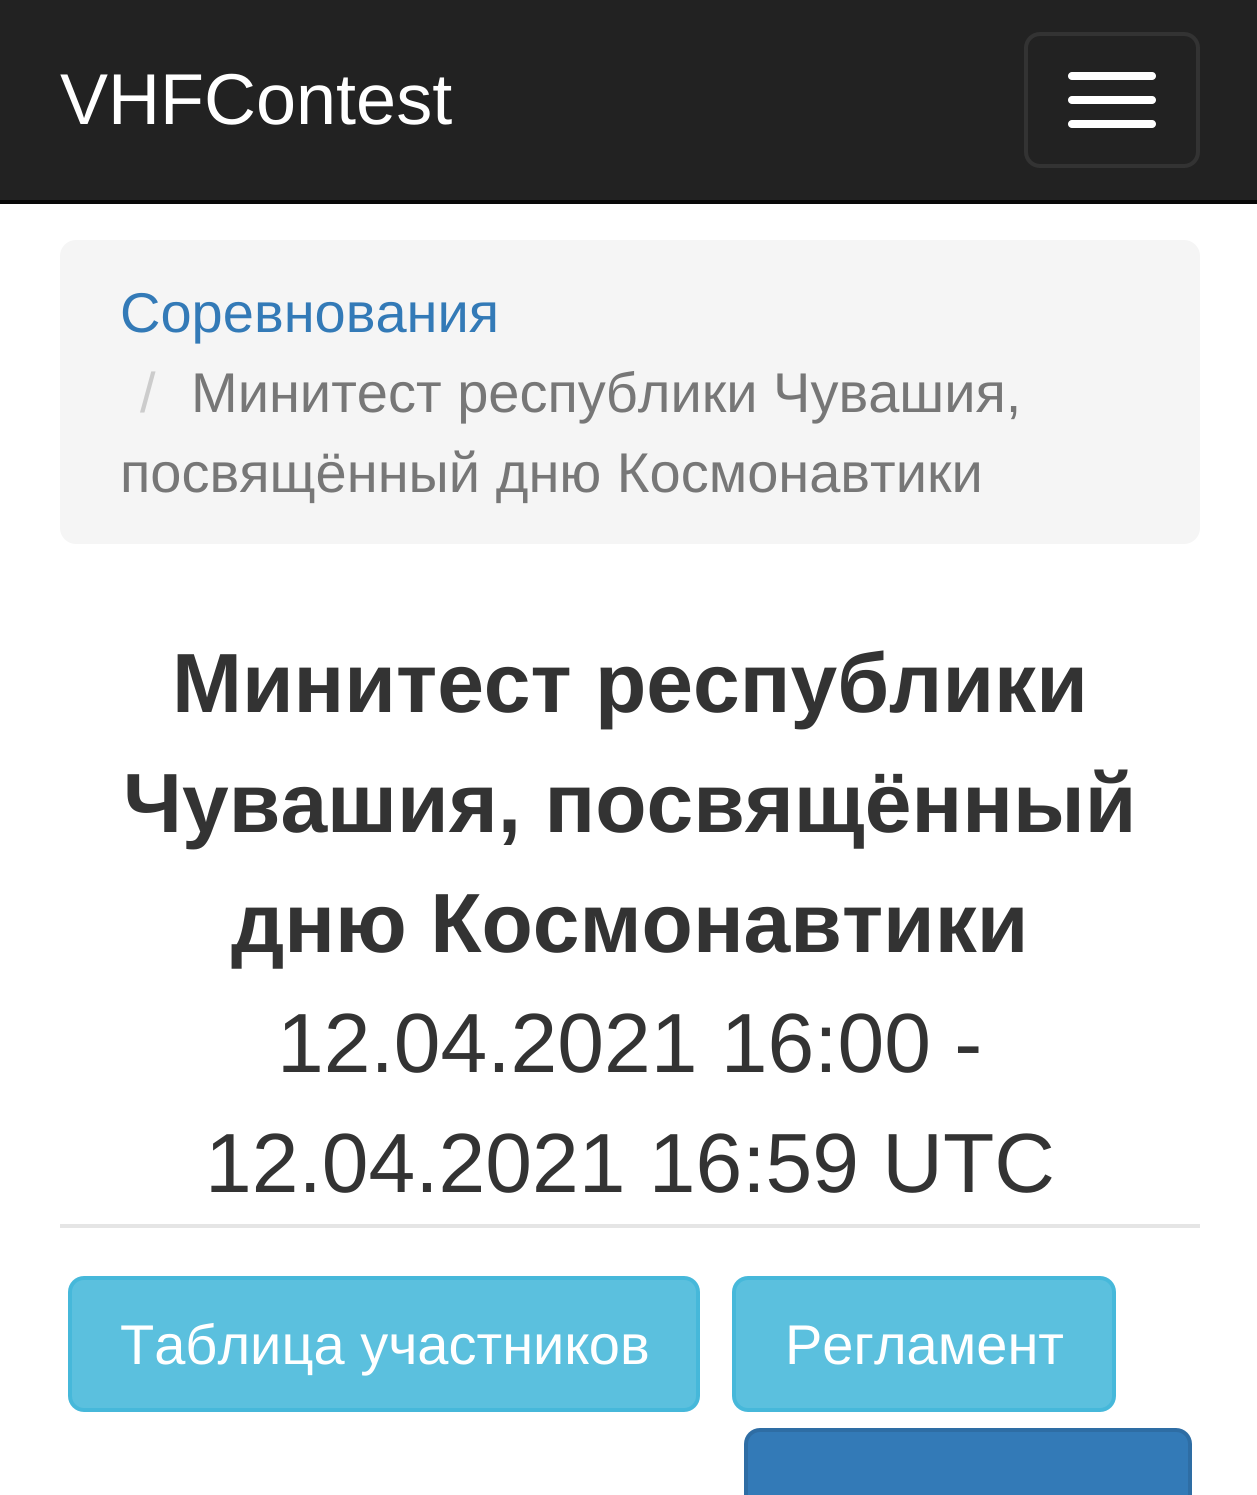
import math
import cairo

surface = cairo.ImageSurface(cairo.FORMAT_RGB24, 1257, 1495)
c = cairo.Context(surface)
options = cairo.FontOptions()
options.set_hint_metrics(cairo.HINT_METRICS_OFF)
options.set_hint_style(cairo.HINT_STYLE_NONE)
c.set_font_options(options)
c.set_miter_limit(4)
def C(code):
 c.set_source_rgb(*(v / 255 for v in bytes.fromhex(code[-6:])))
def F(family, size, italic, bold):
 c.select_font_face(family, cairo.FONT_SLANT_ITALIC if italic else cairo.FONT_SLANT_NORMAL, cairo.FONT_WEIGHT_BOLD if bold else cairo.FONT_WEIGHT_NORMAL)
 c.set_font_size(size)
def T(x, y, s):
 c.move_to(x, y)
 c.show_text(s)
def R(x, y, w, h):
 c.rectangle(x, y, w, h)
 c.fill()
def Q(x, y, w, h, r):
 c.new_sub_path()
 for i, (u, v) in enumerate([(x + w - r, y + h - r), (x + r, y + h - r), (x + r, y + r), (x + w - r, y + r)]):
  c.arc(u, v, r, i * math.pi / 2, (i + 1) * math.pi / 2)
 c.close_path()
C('ffffff')
c.paint()
C('222222')
R(0,0,1257,200)
C('080808')
R(0,200,1257,4)
F('Liberation Sans',72,0,0)
C('ffffff')
T(60,124,'VHFContest')
Q(1026,34,172,132,14)
C('333333')
c.set_line_width(4)
c.stroke()
C('ffffff')
Q(1068,72,88,8,4)
c.fill()
Q(1068,96,88,8,4)
c.fill()
Q(1068,120,88,8,4)
c.fill()
C('f5f5f5')
Q(60,240,1140,304,16)
c.fill()
F('Liberation Sans',56,0,0)
C('337ab7')
T(120,332,'Соревнования')
C('cccccc')
T(140,412,'/')
C('777777')
T(191,412,'Минитест республики Чувашия,')
T(120,492,'посвящённый дню Космонавтики')
C('e5e5e5')
R(60,1224,1140,4)
F('Liberation Sans',84,0,1)
C('333333')
T(172,712,'Минитест республики')
T(123,832,'Чувашия, посвящённый')
T(231,952,'дню Космонавтики')
F('Liberation Sans',84,0,0)
T(277,1072,'12.04.2021 16:00 -')
T(205,1192,'12.04.2021 16:59 UTC')
C('5bc0de')
Q(70,1278,628,132,14)
c.fill_preserve()
C('46b8da')
c.stroke()
F('Liberation Sans',56,0,0)
C('ffffff')
T(120,1364,'Таблица участников')
C('5bc0de')
Q(734,1278,380,132,14)
c.fill_preserve()
C('46b8da')
c.stroke()
C('ffffff')
T(785,1364,'Регламент')
C('337ab7')
Q(746,1430,444,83,14)
c.fill_preserve()
C('2e6da4')
c.stroke()
surface.write_to_png('o.png')
